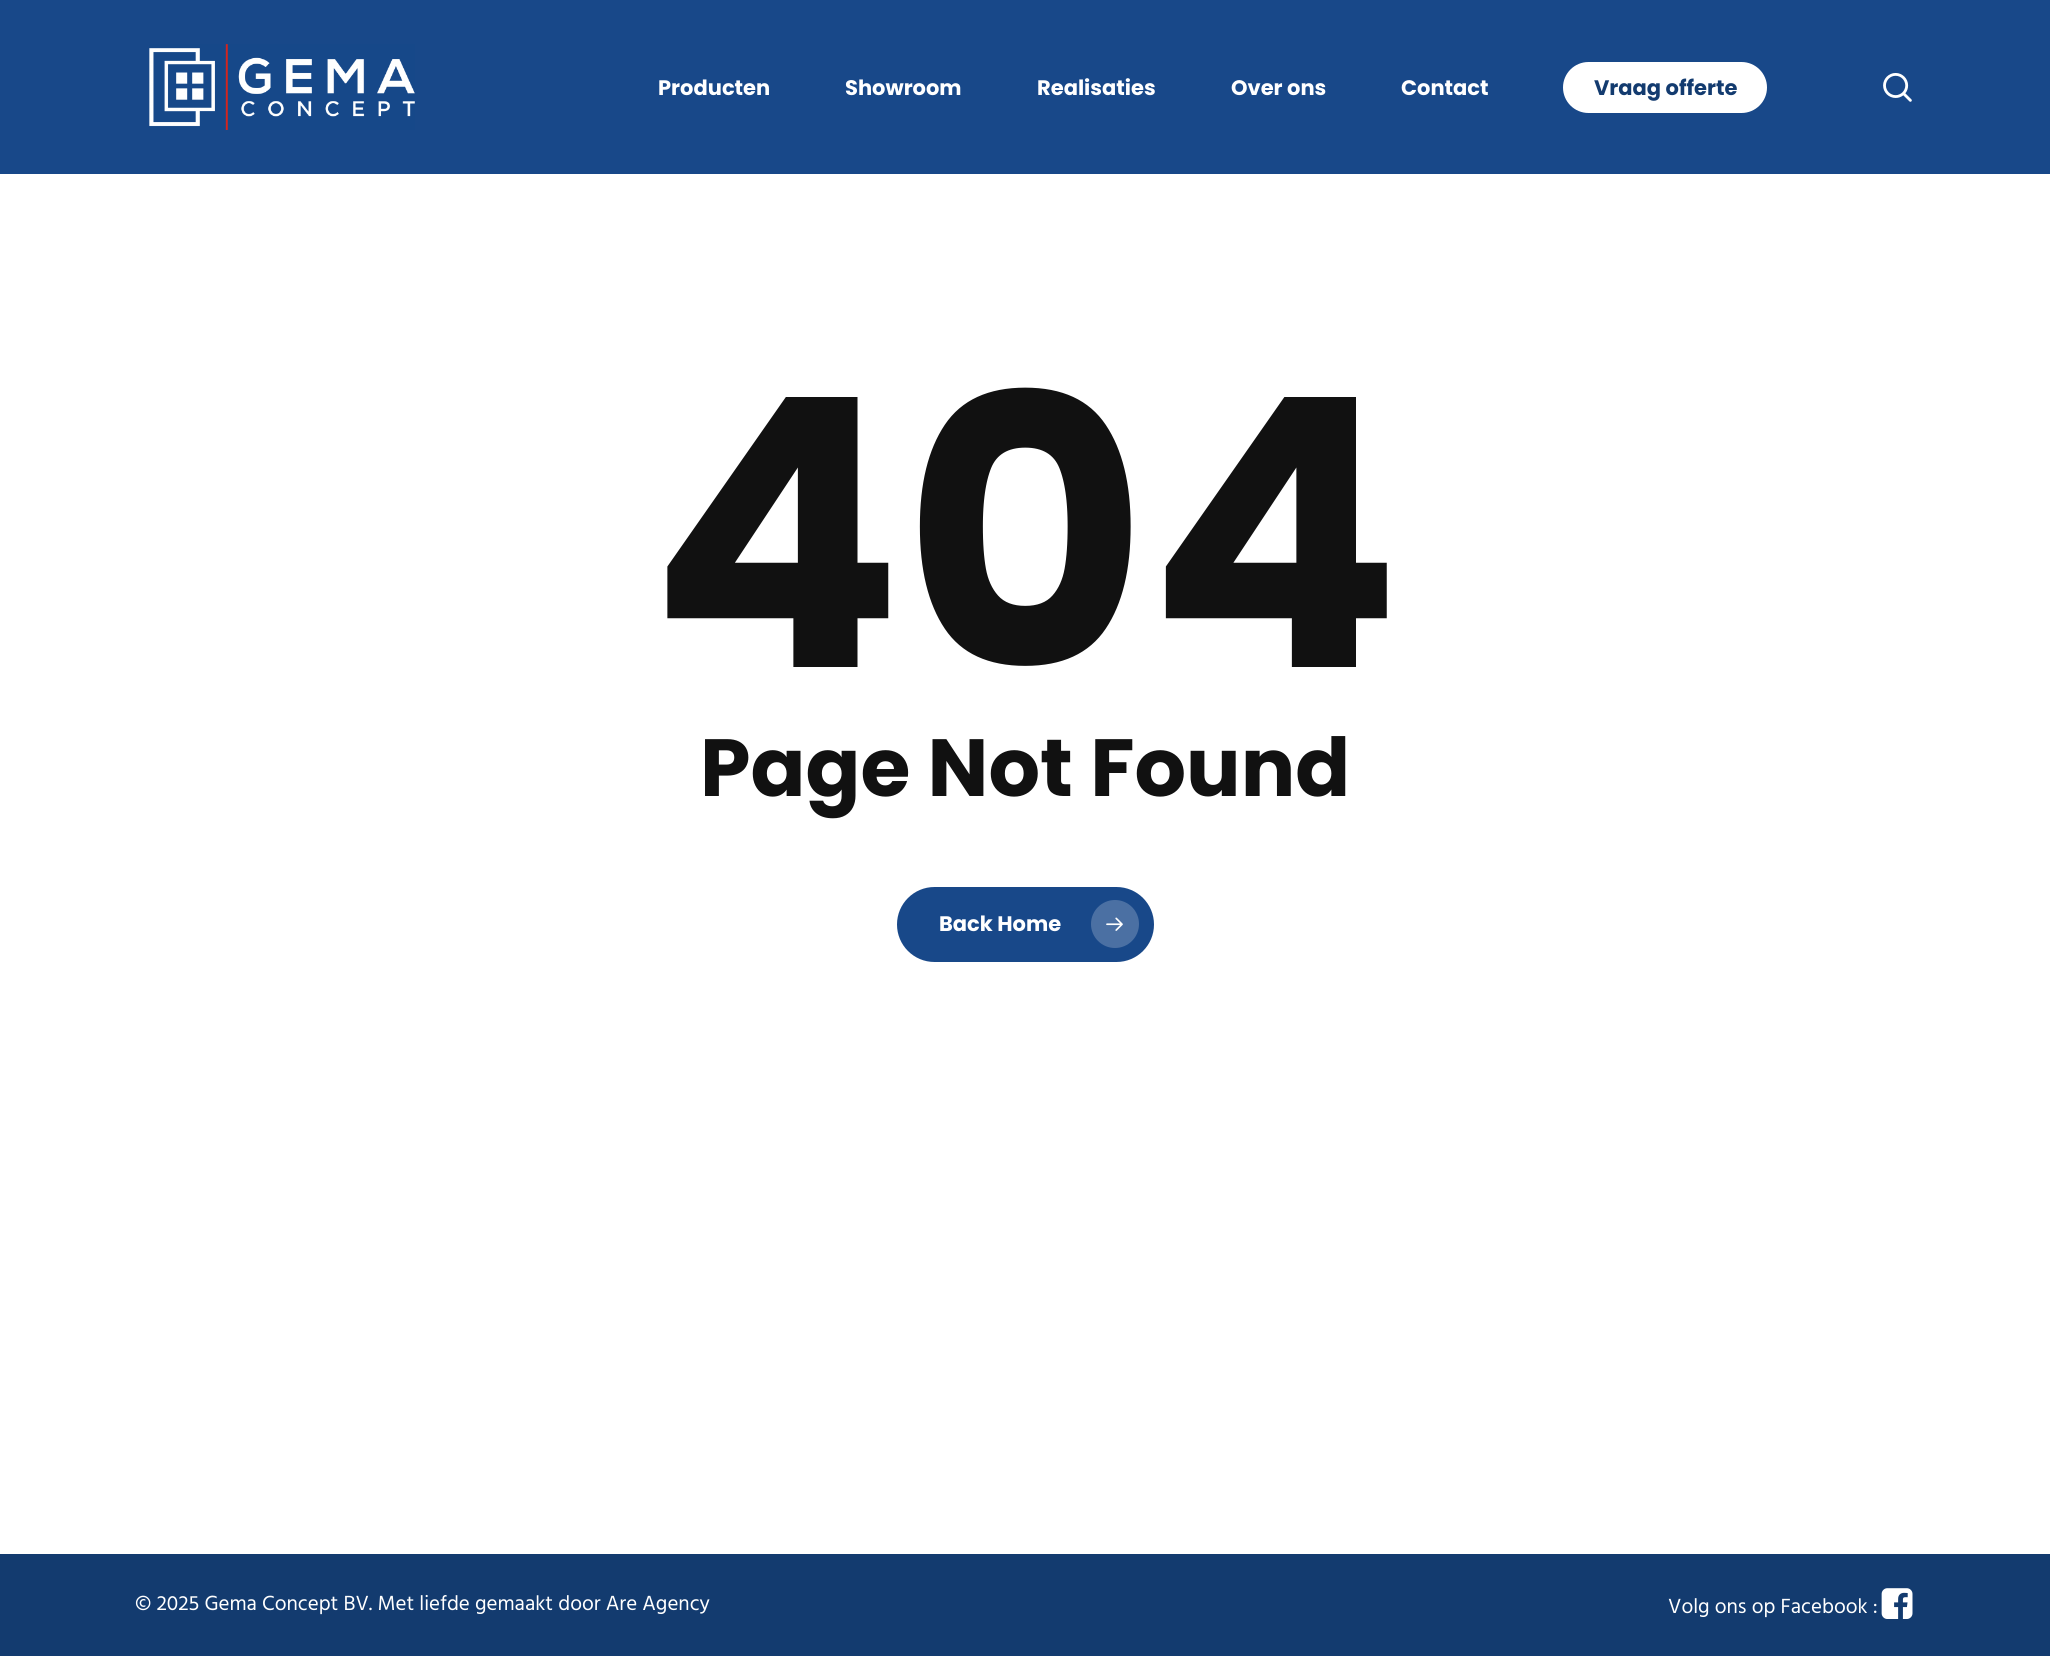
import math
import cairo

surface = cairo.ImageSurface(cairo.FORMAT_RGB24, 2050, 1656)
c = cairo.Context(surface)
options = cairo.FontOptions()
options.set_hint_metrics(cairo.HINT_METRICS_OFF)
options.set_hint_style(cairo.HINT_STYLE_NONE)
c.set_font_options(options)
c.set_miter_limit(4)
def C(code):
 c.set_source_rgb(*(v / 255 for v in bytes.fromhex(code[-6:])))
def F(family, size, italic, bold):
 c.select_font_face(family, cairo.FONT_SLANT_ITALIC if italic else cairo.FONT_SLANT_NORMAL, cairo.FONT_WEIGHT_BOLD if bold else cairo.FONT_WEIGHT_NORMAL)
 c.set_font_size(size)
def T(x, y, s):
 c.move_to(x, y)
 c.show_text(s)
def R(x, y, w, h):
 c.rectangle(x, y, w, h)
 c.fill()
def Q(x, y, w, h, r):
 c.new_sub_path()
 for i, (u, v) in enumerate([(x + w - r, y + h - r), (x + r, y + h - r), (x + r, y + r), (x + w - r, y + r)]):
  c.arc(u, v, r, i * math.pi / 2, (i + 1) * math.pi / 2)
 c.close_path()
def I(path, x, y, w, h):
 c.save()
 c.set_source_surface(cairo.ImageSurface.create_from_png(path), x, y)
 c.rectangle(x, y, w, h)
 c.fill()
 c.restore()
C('ffffff')
c.paint()
C('184889')
R(0,0,2050,174)
I('1.png',149,44,266,86)
F('Poppins',21,0,1)
C('ffffff')
T(658,95,'Producten')
T(845,95,'Showroom')
T(1037,95,'Realisaties')
T(1231,95,'Over ons')
T(1401,95,'Contact')
Q(1563,62,204,51,25.5)
c.fill()
C('133b6f')
T(1594,95,'Vraag offerte')
I('2.png',1883,73,29,29)
F('Poppins',375,0,1)
C('111111')
T(649,667,'404')
F('Poppins',81,0,1)
T(700,796,'Page Not Found')
C('184889')
Q(897,887,257,75,37.5)
c.fill()
F('Poppins',21,0,1)
C('ffffff')
T(939,931,'Back Home')
C('4b70a3')
c.new_path()
c.arc(1115,924,24,0,2 * math.pi)
c.fill()
I('3.png',1106,917,17,14)
C('133b6f')
R(0,1554,2050,102)
F('Hind',21,0,0)
C('ffffff')
T(135,1610,'© 2025 Gema Concept BV. Met liefde gemaakt door Are Agency')
T(1668,1613,'Volg ons op Facebook :')
I('4.png',1881,1588,32,31)
surface.write_to_png('o.png')
